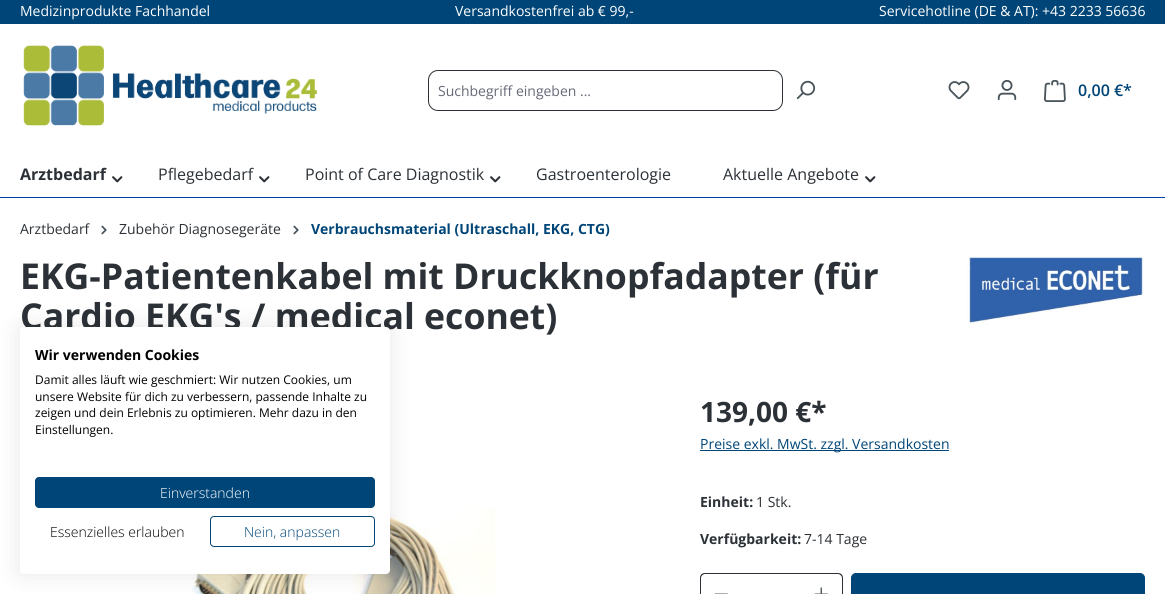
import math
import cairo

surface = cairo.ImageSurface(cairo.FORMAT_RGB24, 1165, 594)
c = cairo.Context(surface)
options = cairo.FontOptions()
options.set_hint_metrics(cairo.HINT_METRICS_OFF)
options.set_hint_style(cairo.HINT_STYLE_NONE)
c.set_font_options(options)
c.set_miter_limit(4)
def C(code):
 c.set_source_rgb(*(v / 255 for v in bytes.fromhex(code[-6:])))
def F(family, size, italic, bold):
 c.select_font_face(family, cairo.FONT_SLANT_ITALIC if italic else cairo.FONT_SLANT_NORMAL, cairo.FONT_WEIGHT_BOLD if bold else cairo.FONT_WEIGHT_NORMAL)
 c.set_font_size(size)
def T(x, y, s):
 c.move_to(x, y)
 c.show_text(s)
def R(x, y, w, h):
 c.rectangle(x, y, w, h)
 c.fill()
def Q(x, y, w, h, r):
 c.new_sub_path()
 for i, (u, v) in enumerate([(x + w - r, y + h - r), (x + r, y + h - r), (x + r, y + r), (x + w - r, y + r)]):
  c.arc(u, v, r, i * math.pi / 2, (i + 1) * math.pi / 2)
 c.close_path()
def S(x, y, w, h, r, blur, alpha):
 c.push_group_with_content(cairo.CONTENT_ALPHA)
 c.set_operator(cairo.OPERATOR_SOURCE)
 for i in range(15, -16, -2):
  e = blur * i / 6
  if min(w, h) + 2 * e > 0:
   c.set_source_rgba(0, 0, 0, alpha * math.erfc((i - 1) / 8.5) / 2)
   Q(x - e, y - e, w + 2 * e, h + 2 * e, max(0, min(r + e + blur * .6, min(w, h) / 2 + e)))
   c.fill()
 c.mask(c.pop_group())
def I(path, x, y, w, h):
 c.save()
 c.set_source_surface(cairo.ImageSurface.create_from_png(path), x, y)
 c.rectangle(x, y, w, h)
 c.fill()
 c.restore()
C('ffffff')
c.paint()
C('004577')
R(0,0,1165,24)
F('Open Sans',14,0,0)
C('ffffff')
T(20,16,'Medizinprodukte Fachhandel')
T(455,16,'Versandkostenfrei ab € 99,-')
T(879,16,'Servicehotline (DE & AT): +43 2233 56636')
I('1.png',23,45,295,81)
Q(428.5,70.5,354,40,9.5)
C('2b3136')
c.set_line_width(1)
c.stroke()
C('666977')
T(438,96,'Suchbegriff eingeben ...')
I('2.png',796,80,20,20)
I('3.png',948,81,22,19)
I('4.png',997,79,20,22)
I('5.png',1044,80,22,22)
F('Open Sans SemiBold',16,0,0)
C('004577')
T(1078,96,'0,00 €*')
C('0042a0')
R(0,197,1165,1)
F('Open Sans',16,0,1)
C('2b3136')
T(20,180,'Arztbedarf')
I('6.png',112,176,11,7)
F('Open Sans',16,0,0)
T(158,180,'Pflegebedarf')
I('6.png',259,176,11,7)
T(305,180,'Point of Care Diagnostik')
I('6.png',490,176,11,7)
T(536,180,'Gastroenterologie')
T(723,180,'Aktuelle Angebote')
I('6.png',865,176,11,7)
F('Open Sans',14,0,0)
T(20,234,'Arztbedarf')
I('7.png',101,225,6,10)
T(119,234,'Zubehör Diagnosegeräte')
I('7.png',293,225,6,10)
F('Open Sans',14,0,1)
C('004577')
T(311,234,'Verbrauchsmaterial (Ultraschall, EKG, CTG)')
F('Open Sans',35.6,0,1)
C('2b3136')
T(20,289,'EKG-Patientenkabel mit Druckknopfadapter (für')
T(20,329,'Cardio EKG\'s / medical econet)')
I('8.png',967,255,177,69)
I('9.png',192,508,304,86)
F('Open Sans',28,0,1)
T(700,422,'139,00 €*')
C('004577')
R(700,450,249,1)
F('Open Sans',14,0,0)
T(700,449,'Preise exkl. MwSt. zzgl. Versandkosten')
F('Open Sans',14,0,1)
C('2b3136')
T(700,507,'Einheit:')
F('Open Sans',14,0,0)
T(756,507,'1 Stk.')
F('Open Sans',14,0,1)
T(700,544,'Verfügbarkeit:')
F('Open Sans',14,0,0)
T(804,544,'7-14 Tage')
R(740,573,62,1)
c.set_fill_rule(cairo.FILL_RULE_EVEN_ODD)
c.new_path()
c.move_to(705,573)
c.line_to(741,573)
c.line_to(741,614)
c.line_to(705,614)
c.curve_to(702,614,700,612,700,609)
c.line_to(700,578)
c.curve_to(700,575,702,573,705,573)
c.close_path()
c.move_to(705,574)
c.line_to(741,574)
c.line_to(741,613)
c.line_to(705,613)
c.curve_to(703,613,701,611,701,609)
c.line_to(701,578)
c.curve_to(701,576,703,574,705,574)
c.close_path()
c.fill()
I('10.png',714,593,14,1)
c.new_path()
c.move_to(801,573)
c.line_to(838,573)
c.curve_to(841,573,843,575,843,578)
c.line_to(843,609)
c.curve_to(843,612,841,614,838,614)
c.line_to(801,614)
c.close_path()
c.move_to(801,574)
c.line_to(838,574)
c.curve_to(840,574,842,576,842,578)
c.line_to(842,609)
c.curve_to(842,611,840,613,838,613)
c.line_to(801,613)
c.close_path()
c.fill()
I('11.png',814,587,14,7)
C('004577')
Q(851.5,573.5,293,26,4.5)
c.fill_preserve()
c.stroke()
C('000000')
S(20,327,370,247,4,12,.1)
C('ffffff')
Q(20,327,370,247,4)
c.fill()
F('Open Sans',14,0,1)
C('000000')
T(35,360,'Wir verwenden Cookies')
F('Open Sans',12,0,0)
T(35,384,'Damit alles läuft wie geschmiert: Wir nutzen Cookies, um')
T(35,401,'unsere Website für dich zu verbessern, passende Inhalte zu')
T(35,417,'zeigen und dein Erlebnis zu optimieren. Mehr dazu in den')
T(35,434,'Einstellungen.')
C('004577')
Q(35.5,477.5,339,30,3.5)
c.fill_preserve()
c.stroke()
F('Open Sans Light',14,0,0)
C('ffffff')
T(160,498,'Einverstanden')
C('000000')
T(50,537,'Essenzielles erlauben')
Q(210.5,516.5,164,30,3.5)
C('004577')
c.stroke()
T(244,537,'Nein, anpassen')
surface.write_to_png('o.png')
